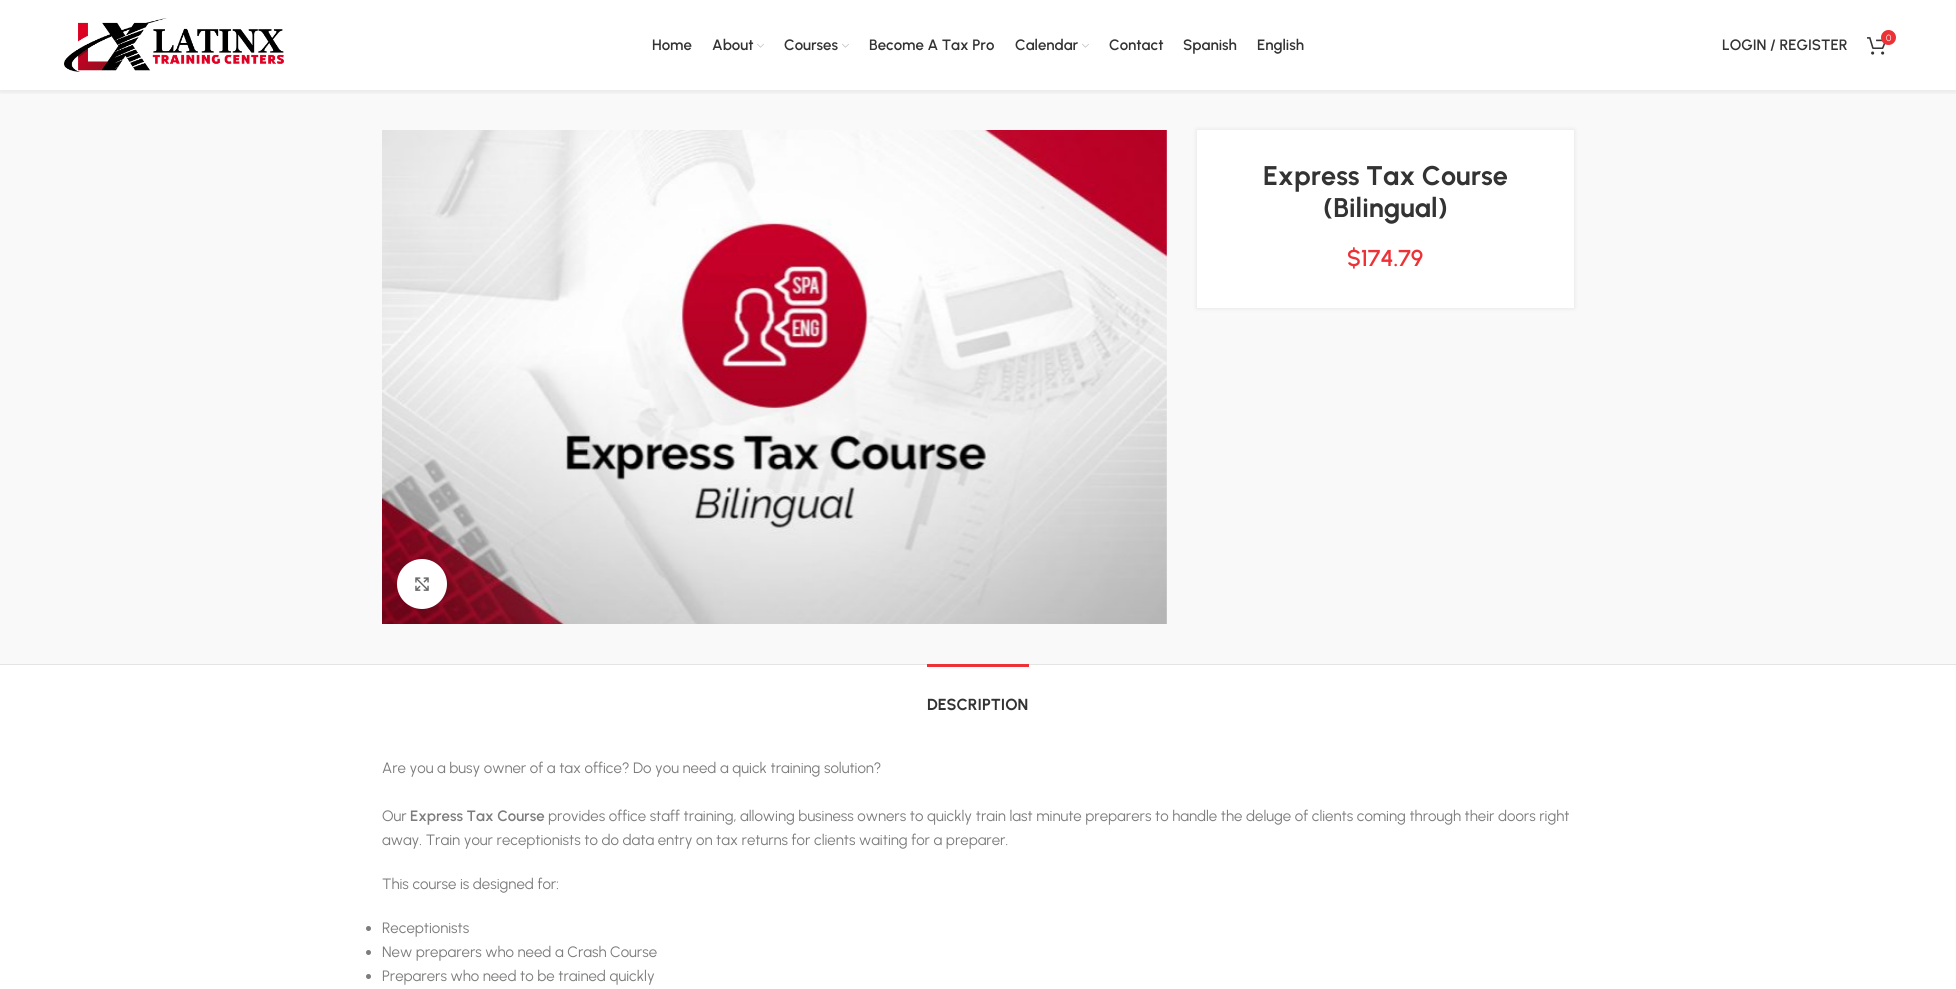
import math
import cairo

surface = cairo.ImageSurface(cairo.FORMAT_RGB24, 1956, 989)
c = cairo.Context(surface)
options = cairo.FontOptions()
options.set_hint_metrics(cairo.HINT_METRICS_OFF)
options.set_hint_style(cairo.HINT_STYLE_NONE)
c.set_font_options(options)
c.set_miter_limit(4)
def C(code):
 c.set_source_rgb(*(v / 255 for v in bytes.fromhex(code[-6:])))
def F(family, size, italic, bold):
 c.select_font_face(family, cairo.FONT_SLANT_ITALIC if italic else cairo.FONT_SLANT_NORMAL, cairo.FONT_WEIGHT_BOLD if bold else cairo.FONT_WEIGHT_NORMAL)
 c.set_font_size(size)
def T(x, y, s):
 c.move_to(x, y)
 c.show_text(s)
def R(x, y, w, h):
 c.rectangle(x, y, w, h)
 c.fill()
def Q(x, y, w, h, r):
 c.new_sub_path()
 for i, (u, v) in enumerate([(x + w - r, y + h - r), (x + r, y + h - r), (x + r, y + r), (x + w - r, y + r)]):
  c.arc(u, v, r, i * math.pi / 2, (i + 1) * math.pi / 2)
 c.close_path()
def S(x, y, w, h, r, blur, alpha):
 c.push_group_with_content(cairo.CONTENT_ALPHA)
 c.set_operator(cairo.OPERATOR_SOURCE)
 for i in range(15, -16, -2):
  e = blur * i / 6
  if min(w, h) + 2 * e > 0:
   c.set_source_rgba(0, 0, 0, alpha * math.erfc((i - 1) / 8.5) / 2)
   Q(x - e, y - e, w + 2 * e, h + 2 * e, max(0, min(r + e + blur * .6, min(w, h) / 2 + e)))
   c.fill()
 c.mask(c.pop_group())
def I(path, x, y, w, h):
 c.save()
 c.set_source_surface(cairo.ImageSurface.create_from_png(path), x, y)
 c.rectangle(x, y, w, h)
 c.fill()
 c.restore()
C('ffffff')
c.paint()
C('f9f9f9')
R(0,90,1956,574)
c.save()
c.rectangle(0,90,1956,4)
c.clip()
C('000000')
S(0,1,1956,90,0,4,.1)
c.restore()
I('1.png',64,18,220,54)
F('Urbanist SemiBold',15,0,0)
C('333333')
T(652,50,'Home')
T(712,50,'About')
I('2.png',757,43,7,5)
T(784,50,'Courses')
I('2.png',842,43,7,5)
T(869,50,'Become A Tax Pro')
T(1015,50,'Calendar')
I('2.png',1082,43,7,5)
T(1109,50,'Contact')
T(1183,50,'Spanish')
T(1257,50,'English')
I('3.png',1867,37,19,18)
C('ed3237')
c.arc(1888.5,37.5,7.5,0,2 * math.pi)
c.fill()
F('Urbanist',9,0,0)
C('ffffff')
T(1886,41,'0')
F('Urbanist SemiBold',15,0,0)
C('333333')
T(1722,50,'LOGIN / REGISTER')
I('4.png',382,130,785,494)
C('000000')
S(397,559,50,50,25,2.5,.08)
C('ffffff')
c.arc(422,584,25,0,2 * math.pi)
c.fill()
I('5.png',415,577,14,14)
C('000000')
S(1197,130,377,178,0,2.5,.1)
C('ffffff')
R(1197,130,377,178)
F('Urbanist',27,0,1)
C('333333')
T(1263,185,'Express Tax Course')
T(1323,217,'(Bilingual)')
F('Urbanist SemiBold',23,0,0)
C('ed3237')
T(1347,266,'$174.79')
C('e4e4e4')
R(0,664,1956,1)
C('ed3237')
R(927,664,102,3)
F('Urbanist',16,0,1)
C('333333')
T(927,710,'DESCRIPTION')
F('Urbanist',15,0,0)
C('7c7c7c')
T(382,773,'Are you a busy owner of a tax office? Do you need a quick training solution?')
T(382,821,'Our')
F('Urbanist SemiBold',15,0,0)
T(410,821,'Express Tax Course')
F('Urbanist',15,0,0)
T(548,821,'provides office staff training, allowing business owners to quickly train last minute preparers to handle the deluge of clients coming through their doors right')
T(382,845,'away. Train your receptionists to do data entry on tax returns for clients waiting for a preparer.')
T(382,889,'This course is designed for:')
c.new_path()
c.arc(368.5,928.5,2.5,0,2 * math.pi)
c.fill()
T(382,933,'Receptionists')
c.new_path()
c.arc(368.5,952.5,2.5,0,2 * math.pi)
c.fill()
T(382,957,'New preparers who need a Crash Course')
c.new_path()
c.arc(368.5,976.5,2.5,0,2 * math.pi)
c.fill()
T(382,981,'Preparers who need to be trained quickly')
surface.write_to_png('o.png')
